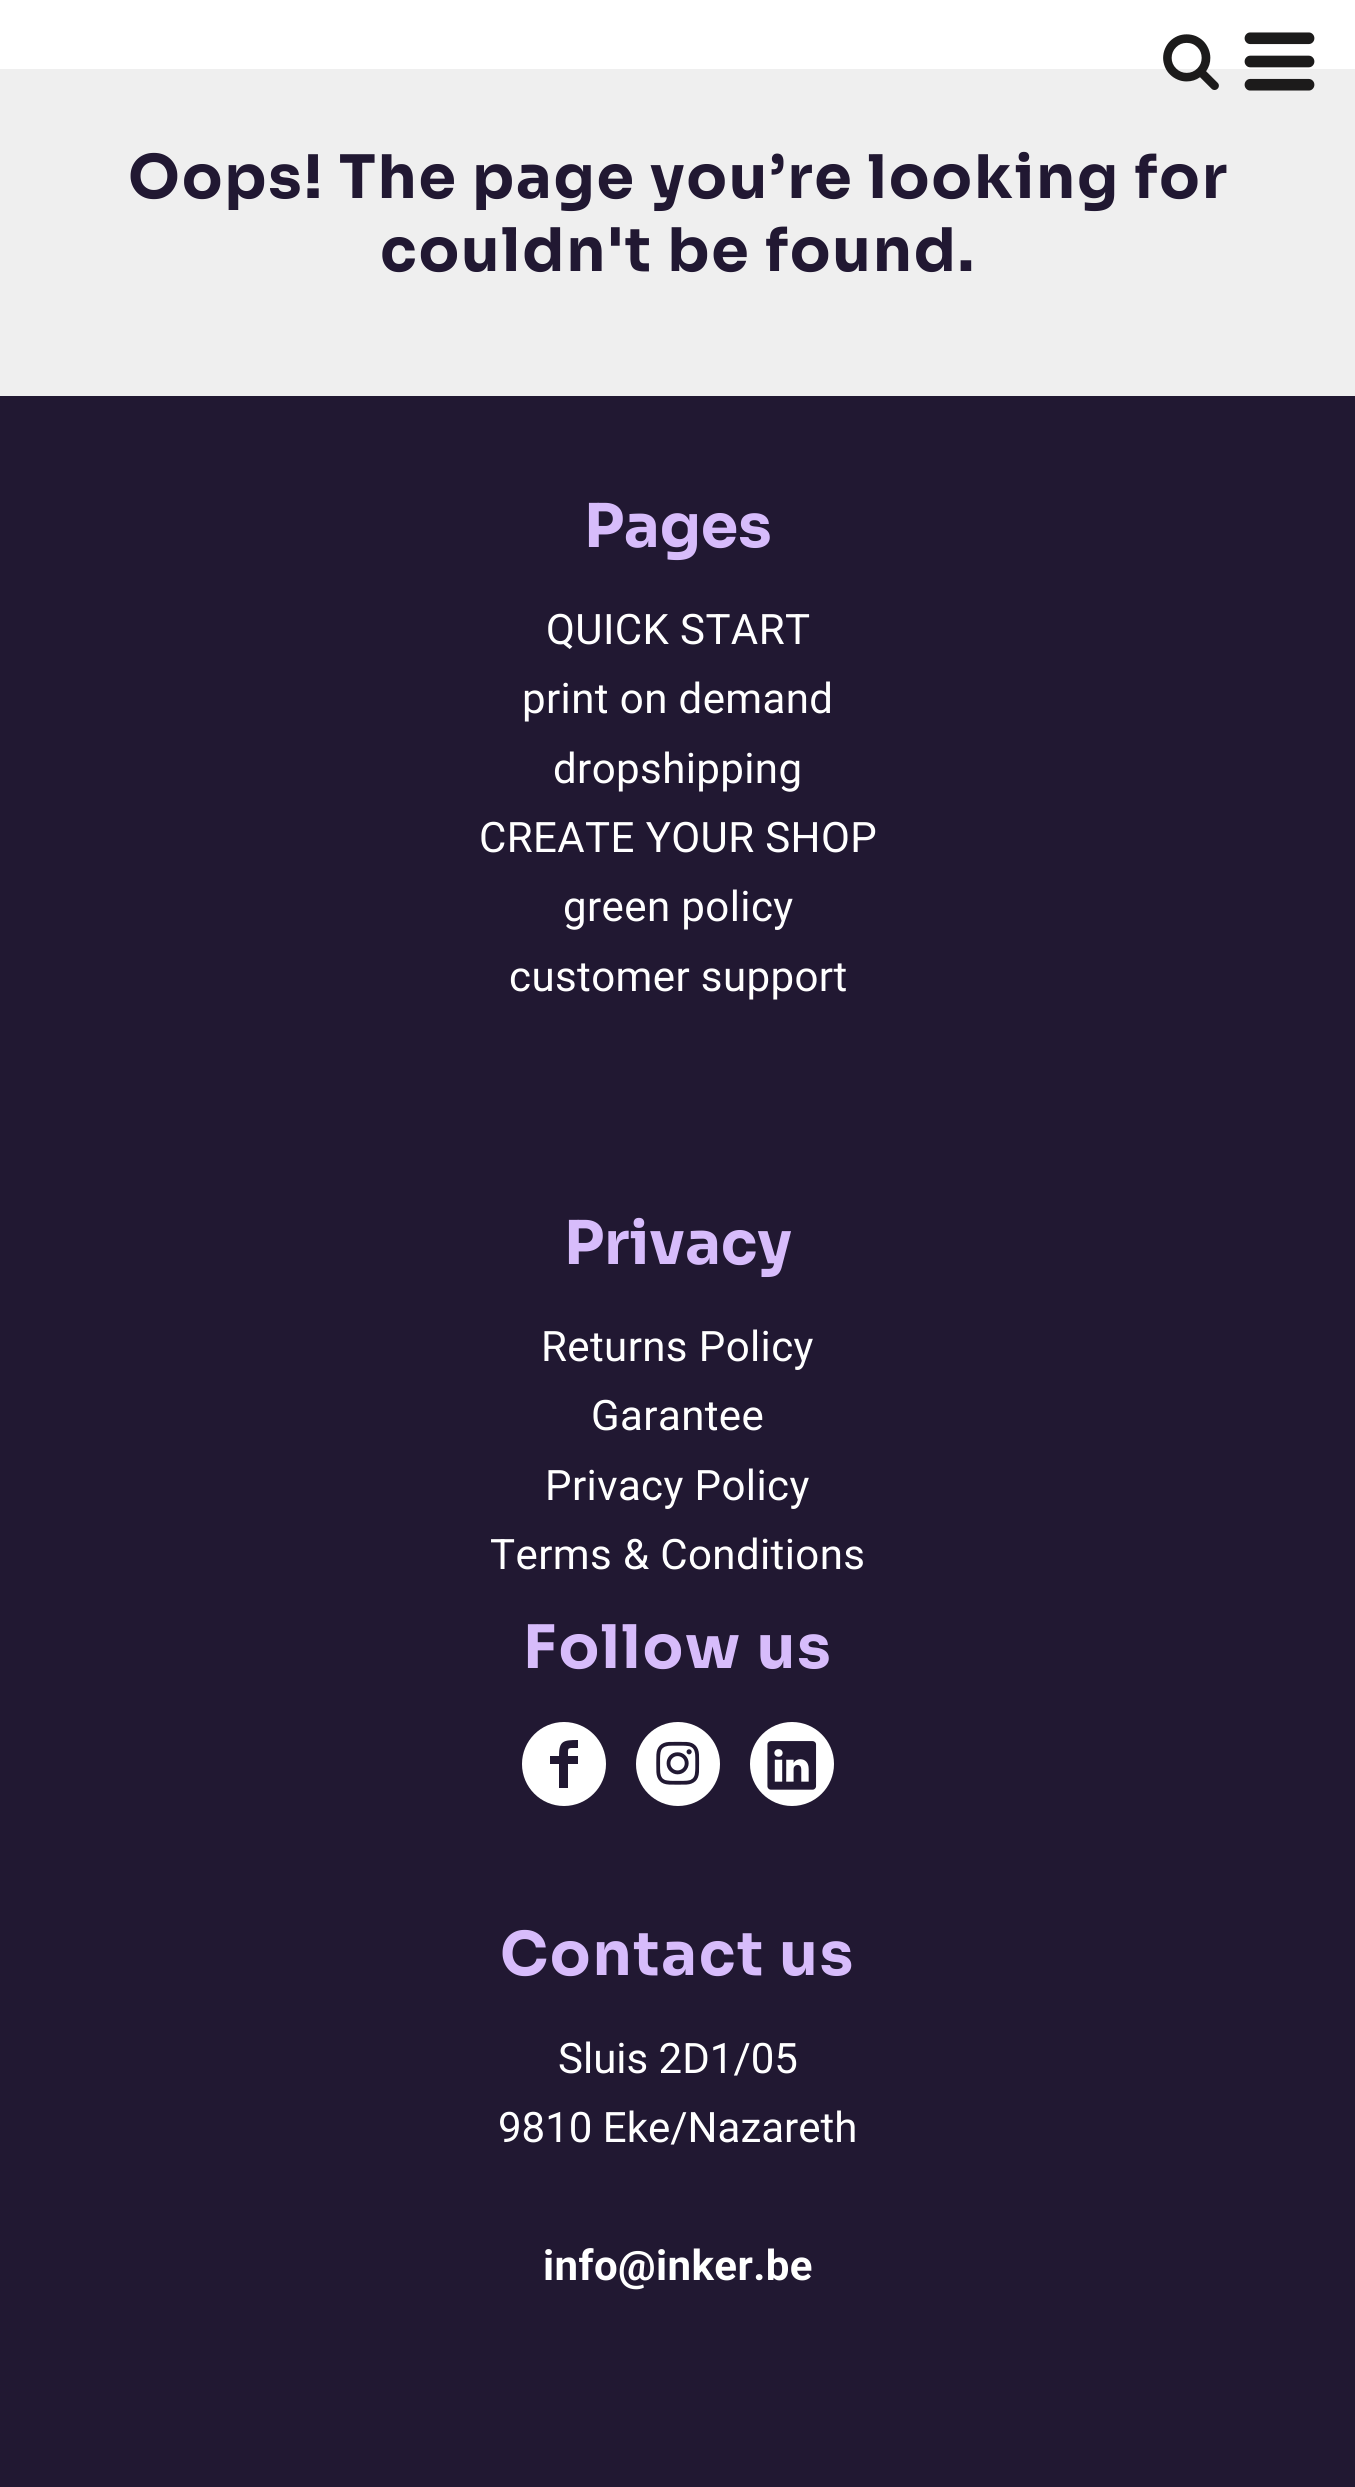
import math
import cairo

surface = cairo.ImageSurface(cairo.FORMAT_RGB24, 1355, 2487)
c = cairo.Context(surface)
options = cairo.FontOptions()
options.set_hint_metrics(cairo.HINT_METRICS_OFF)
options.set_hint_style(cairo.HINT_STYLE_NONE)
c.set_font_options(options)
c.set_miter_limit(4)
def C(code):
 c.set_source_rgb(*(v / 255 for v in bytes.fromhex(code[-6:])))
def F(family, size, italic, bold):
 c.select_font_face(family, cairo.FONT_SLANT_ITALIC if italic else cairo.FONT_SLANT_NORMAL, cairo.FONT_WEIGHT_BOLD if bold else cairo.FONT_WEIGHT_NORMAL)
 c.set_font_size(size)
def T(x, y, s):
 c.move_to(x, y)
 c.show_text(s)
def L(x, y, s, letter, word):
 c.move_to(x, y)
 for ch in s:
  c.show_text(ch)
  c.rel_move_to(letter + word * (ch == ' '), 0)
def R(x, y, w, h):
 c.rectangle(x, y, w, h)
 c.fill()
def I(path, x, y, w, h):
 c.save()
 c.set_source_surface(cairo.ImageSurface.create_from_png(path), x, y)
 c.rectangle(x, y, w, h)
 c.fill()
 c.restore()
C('efefef')
c.paint()
C('ffffff')
R(0,0,1355,69)
I('1.png',1163,34,56,56)
I('2.png',1244,32,71,59)
F('Sora',60,0,1)
C('211832')
L(128,198,'Oops! The page you’re looking for',1.8,0)
L(380,271,'couldn\'t be found.',1.8,0)
R(0,396,1355,2091)
C('d7bcfb')
T(584,547,'Pages')
F('Roboto',42,0,0)
C('ffffff')
L(546,644,'QUICK START',.4,0)
L(522,713,'print on demand',.4,0)
L(553,783,'dropshipping',.4,0)
L(479,852,'CREATE YOUR SHOP',.4,0)
L(563,921,'green policy',.4,0)
L(509,991,'customer support',.4,0)
F('Sora',60,0,1)
C('d7bcfb')
T(564,1264,'Privacy')
F('Roboto',42,0,0)
C('ffffff')
L(541,1361,'Returns Policy',.4,0)
L(591,1430,'Garantee',.4,0)
L(545,1500,'Privacy Policy',.4,0)
L(490,1569,'Terms & Conditions',.4,0)
F('Sora',60,0,1)
C('d7bcfb')
L(523,1668,'Follow us',1.8,0)
C('ffffff')
c.new_path()
c.arc(564,1764,42,0,2 * math.pi)
c.fill()
C('211832')
c.new_path()
c.move_to(578,1748)
c.curve_to(567,1748,568,1747,568,1756)
c.line_to(578,1756)
c.line_to(578,1764)
c.line_to(568,1764)
c.line_to(568,1788)
c.line_to(559,1788)
c.line_to(559,1764)
c.line_to(550,1764)
c.line_to(550,1756)
c.line_to(559,1756)
c.curve_to(559,1741,563,1740,578,1740)
c.close_path()
c.fill()
C('ffffff')
c.arc(678,1764,42,0,2 * math.pi)
c.fill()
I('3.png',656,1741,44,44)
c.arc(792,1764,42,0,2 * math.pi)
c.fill()
F('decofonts',54,0,0)
C('211832')
T(765,1792,'?')
F('Sora',60,0,1)
C('d7bcfb')
L(500,1975,'Contact us',1.8,0)
F('Roboto',42,0,0)
C('ffffff')
T(558,2073,'Sluis 2D1/05')
T(498,2142,'9810 Eke/Nazareth')
F('Roboto',42,0,1)
L(543,2280,'info@inker.be',.4,0)
surface.write_to_png('o.png')
